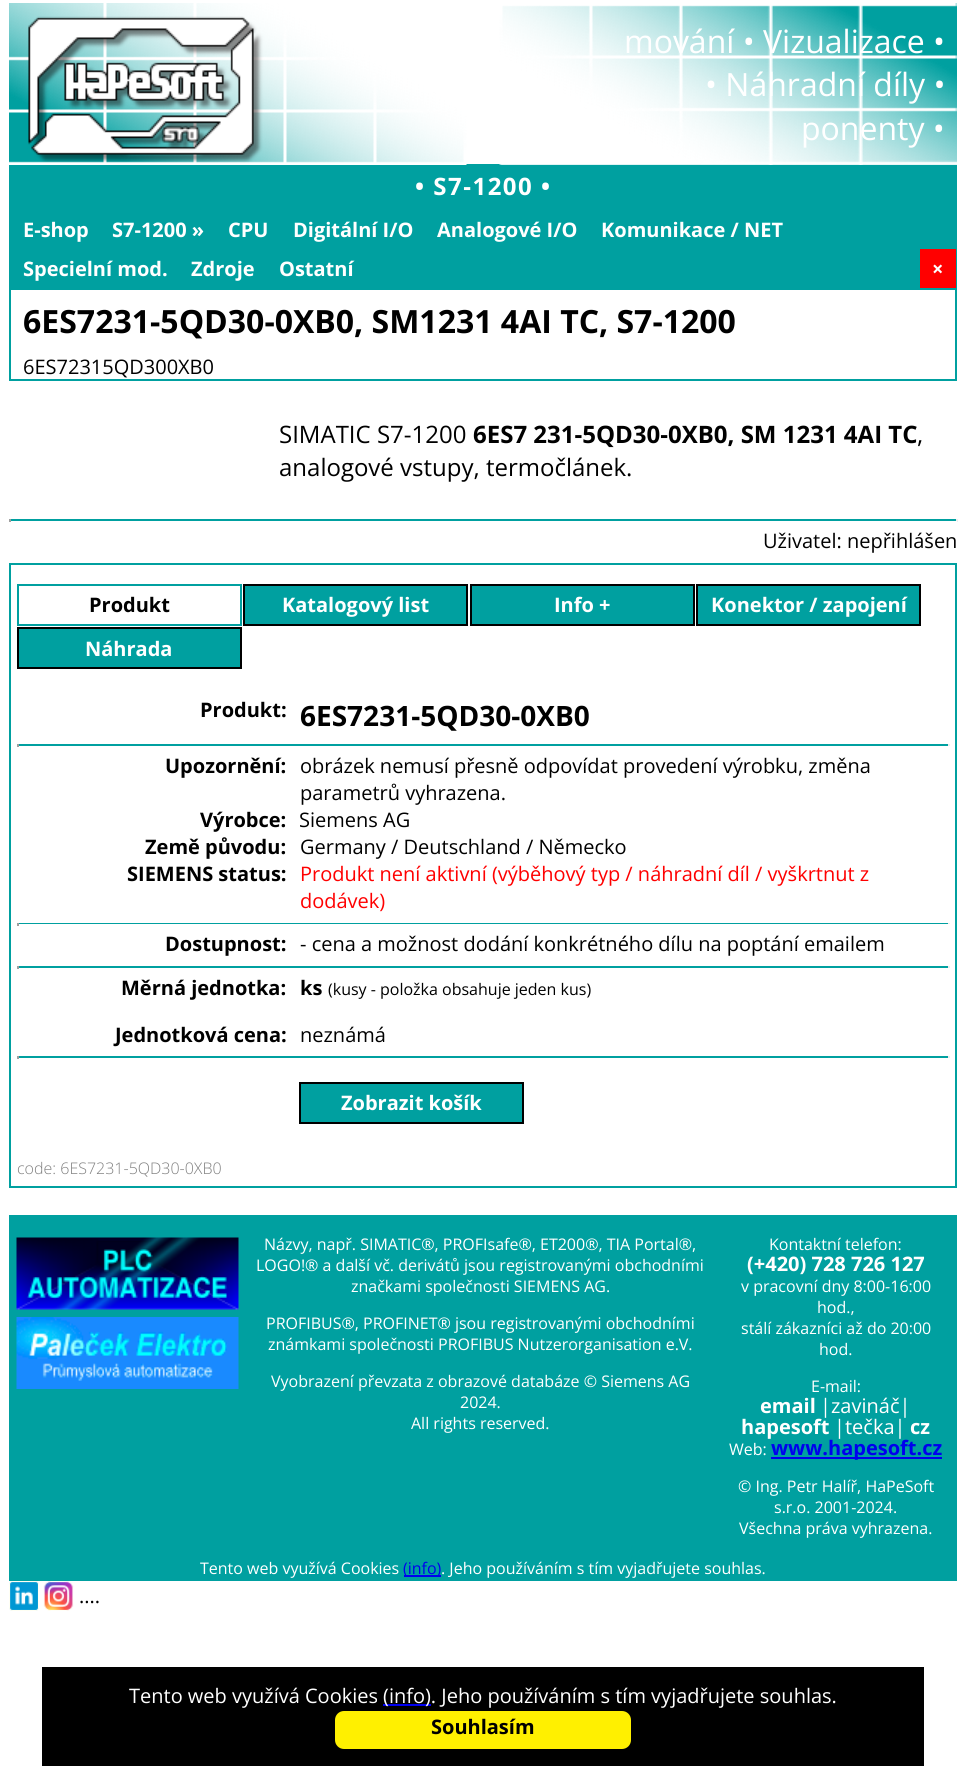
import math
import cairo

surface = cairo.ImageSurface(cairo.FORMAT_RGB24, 966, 1783)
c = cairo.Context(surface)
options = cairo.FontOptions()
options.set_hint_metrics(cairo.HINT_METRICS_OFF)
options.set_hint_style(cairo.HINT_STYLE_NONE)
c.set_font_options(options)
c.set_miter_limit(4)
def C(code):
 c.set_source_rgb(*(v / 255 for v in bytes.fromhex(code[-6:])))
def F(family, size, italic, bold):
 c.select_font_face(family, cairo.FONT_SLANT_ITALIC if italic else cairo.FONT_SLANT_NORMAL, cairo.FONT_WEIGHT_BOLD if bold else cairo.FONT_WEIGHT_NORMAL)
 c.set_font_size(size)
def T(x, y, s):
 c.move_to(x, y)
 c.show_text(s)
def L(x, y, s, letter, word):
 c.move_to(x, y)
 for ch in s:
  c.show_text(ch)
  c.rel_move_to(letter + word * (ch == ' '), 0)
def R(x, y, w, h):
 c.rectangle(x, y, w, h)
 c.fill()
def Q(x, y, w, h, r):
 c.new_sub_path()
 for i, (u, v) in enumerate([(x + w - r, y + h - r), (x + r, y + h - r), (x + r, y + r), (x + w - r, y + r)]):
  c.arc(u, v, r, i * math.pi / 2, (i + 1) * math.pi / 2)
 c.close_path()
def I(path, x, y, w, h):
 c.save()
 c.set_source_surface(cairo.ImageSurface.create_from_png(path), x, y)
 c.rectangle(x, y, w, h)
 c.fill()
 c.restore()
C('ffffff')
c.paint()
C('00a0a0')
R(9,164,948,124)
I('1.png',9,3,458,162)
I('2.png',499,3,458,162)
F('Open Sans',32,0,0)
C('ffffff')
T(624,53,'mování • Vizualizace •')
T(705,96,'• Náhradní díly •')
T(801,140,'ponenty •')
F('Open Sans',24,0,1)
L(415,195,'• S7-1200 •',1.5,0)
F('Open Sans',20,0,1)
T(23,237,'E-shop')
T(112,237,'S7-1200 »')
T(228,237,'CPU')
T(293,237,'Digitální I/O')
T(437,237,'Analogové I/O')
T(601,237,'Komunikace / NET')
T(23,276,'Specielní mod.')
T(191,276,'Zdroje')
T(279,276,'Ostatní')
C('ff0000')
R(920,249,36,39)
C('ffffff')
T(932,276,'×')
c.rectangle(10,289,946,91)
C('00a0a0')
c.stroke()
F('Open Sans',32,0,1)
C('000000')
T(23,333,'6ES7231-5QD30-0XB0, SM1231 4AI TC, S7-1200')
F('Open Sans',20,0,0)
T(23,374,'6ES72315QD300XB0')
F('Open Sans',24,0,0)
T(279,443,'SIMATIC S7-1200')
F('Open Sans',24,0,1)
T(473,443,'6ES7 231-5QD30-0XB0, SM 1231 4AI TC')
F('Open Sans',24,0,0)
T(917,443,',')
T(279,476,'analogové vstupy, termočlánek.')
C('00a0a0')
R(9,519,948,2)
C('eeeeee')
R(956,519,2,3)
C('ffffff')
R(956,521,1,1)
C('9f9f9f')
R(9,519,2,3)
F('Open Sans',20,0,0)
C('000000')
T(763,548,'Uživatel: nepřihlášen')
c.rectangle(10,564,946,623)
C('00a0a0')
c.stroke()
c.rectangle(18,585,223,40)
c.stroke()
F('Open Sans',20,0,1)
C('000000')
T(89,612,'Produkt')
C('00a0a0')
c.rectangle(244,585,223,40)
c.fill_preserve()
C('000000')
c.stroke()
C('ffffff')
T(282,612,'Katalogový list')
C('00a0a0')
c.rectangle(471,585,223,40)
c.fill_preserve()
C('000000')
c.stroke()
C('ffffff')
T(554,612,'Info +')
C('00a0a0')
c.rectangle(697,585,223,40)
c.fill_preserve()
C('000000')
c.stroke()
C('ffffff')
T(711,612,'Konektor / zapojení')
C('00a0a0')
c.rectangle(18,628,223,40)
c.fill_preserve()
C('000000')
c.stroke()
C('ffffff')
T(85,656,'Náhrada')
C('000000')
T(200,717,'Produkt:')
F('Open Sans',28,0,1)
T(300,726,'6ES7231-5QD30-0XB0')
C('00a0a0')
R(17,744,933,2)
C('eeeeee')
R(948,744,2,3)
C('ffffff')
R(948,746,2,1)
C('9f9f9f')
R(17,744,2,3)
F('Open Sans',20,0,1)
C('000000')
T(165,773,'Upozornění:')
F('Open Sans',20,0,0)
T(300,773,'obrázek nemusí přesně odpovídat provedení výrobku, změna')
T(300,800,'parametrů vyhrazena.')
F('Open Sans',20,0,1)
T(200,827,'Výrobce:')
F('Open Sans',20,0,0)
T(299,827,'Siemens AG')
F('Open Sans',20,0,1)
T(145,854,'Země původu:')
F('Open Sans',20,0,0)
T(300,854,'Germany / Deutschland / Německo')
F('Open Sans',20,0,1)
T(127,881,'SIEMENS status:')
F('Open Sans',20,0,0)
C('ff0000')
T(300,881,'Produkt není aktivní (výběhový typ / náhradní díl / vyškrtnut z')
T(300,908,'dodávek)')
C('00a0a0')
R(17,923,933,1)
C('eeeeee')
R(948,923,2,3)
C('ffffff')
R(948,924,2,2)
C('9f9f9f')
R(17,923,2,3)
F('Open Sans',20,0,1)
C('000000')
T(165,951,'Dostupnost:')
F('Open Sans',20,0,0)
T(300,951,'- cena a možnost dodání konkrétného dílu na poptání emailem')
C('00a0a0')
R(17,966,933,2)
C('eeeeee')
R(948,966,2,3)
C('ffffff')
R(948,968,2,1)
C('9f9f9f')
R(17,966,2,3)
F('Open Sans',20,0,1)
C('000000')
T(121,995,'Měrná jednotka:')
T(300,995,'ks')
F('Open Sans',16,0,0)
T(328,995,'(kusy - položka obsahuje jeden kus)')
F('Open Sans',20,0,1)
T(115,1042,'Jednotková cena:')
F('Open Sans',20,0,0)
T(300,1042,'neznámá')
C('00a0a0')
R(17,1056,933,2)
C('eeeeee')
R(948,1056,2,3)
C('ffffff')
R(948,1058,2,1)
C('9f9f9f')
R(17,1056,2,3)
C('00a0a0')
c.rectangle(300,1083,223,40)
c.fill_preserve()
C('000000')
c.stroke()
F('Open Sans',20,0,1)
C('ffffff')
T(341,1110,'Zobrazit košík')
F('Open Sans Light',16,0,0)
C('808080')
T(17,1174,'code: 6ES7231-5QD30-0XB0')
C('00a0a0')
R(9,1215,948,366)
I('3.png',16,1237,223,73)
I('4.png',16,1317,223,72)
F('Open Sans',16,0,0)
C('ffffff')
T(264,1250,'Názvy, např. SIMATIC®, PROFIsafe®, ET200®, TIA Portal®,')
T(256,1271,'LOGO!® a další vč. derivátů jsou registrovanými obchodními')
T(351,1292,'značkami společnosti SIEMENS AG.')
T(266,1329,'PROFIBUS®, PROFINET® jsou registrovanými obchodními')
T(268,1350,'známkami společnosti PROFIBUS Nutzerorganisation e.V.')
T(271,1387,'Vyobrazení převzata z obrazové databáze © Siemens AG')
T(460,1408,'2024.')
T(411,1429,'All rights reserved.')
T(769,1250,'Kontaktní telefon:')
F('Open Sans',20,0,1)
T(747,1271,'(+420) 728 726 127')
F('Open Sans',16,0,0)
T(741,1292,'v pracovní dny 8:00-16:00')
T(817,1313,'hod.,')
T(741,1334,'stálí zákazníci až do 20:00')
T(819,1355,'hod.')
T(811,1392,'E-mail:')
F('Open Sans',20,0,1)
T(760,1413,'email')
F('Open Sans',20,0,0)
T(820,1413,'|zavináč|')
F('Open Sans',20,0,1)
T(741,1434,'hapesoft')
F('Open Sans',20,0,0)
T(834,1434,'|tečka|')
F('Open Sans',20,0,1)
T(910,1434,'cz')
F('Open Sans',16,0,0)
T(729,1455,'Web:')
C('0000ee')
R(771,1457,171,2)
F('Open Sans',20,0,1)
T(771,1455,'www.hapesoft.cz')
F('Open Sans',16,0,0)
C('ffffff')
T(738,1492,'© Ing. Petr Halíř, HaPeSoft')
T(774,1513,'s.r.o. 2001-2024.')
T(739,1534,'Všechna práva vyhrazena.')
T(200,1574,'Tento web využívá Cookies')
C('0000ee')
R(404,1575,37,2)
T(403,1574,'(info)')
C('ffffff')
T(441,1574,'. Jeho používáním s tím vyjadřujete souhlas.')
I('5.png',9,1581,30,30)
I('6.png',43,1581,31,30)
F('Open Sans',20,0,0)
C('000000')
T(79,1603,'....')
R(42,1667,882,99)
C('ffffff')
T(129,1703,'Tento web využívá Cookies')
C('0000ee')
R(383,1704,48,2)
C('ffffff')
T(383,1703,'(info). Jeho používáním s tím vyjadřujete souhlas.')
C('fff000')
Q(334,1710,298,40,10)
c.fill_preserve()
C('000000')
c.stroke()
F('Open Sans',20,0,1)
T(431,1734,'Souhlasím')
surface.write_to_png('o.png')
